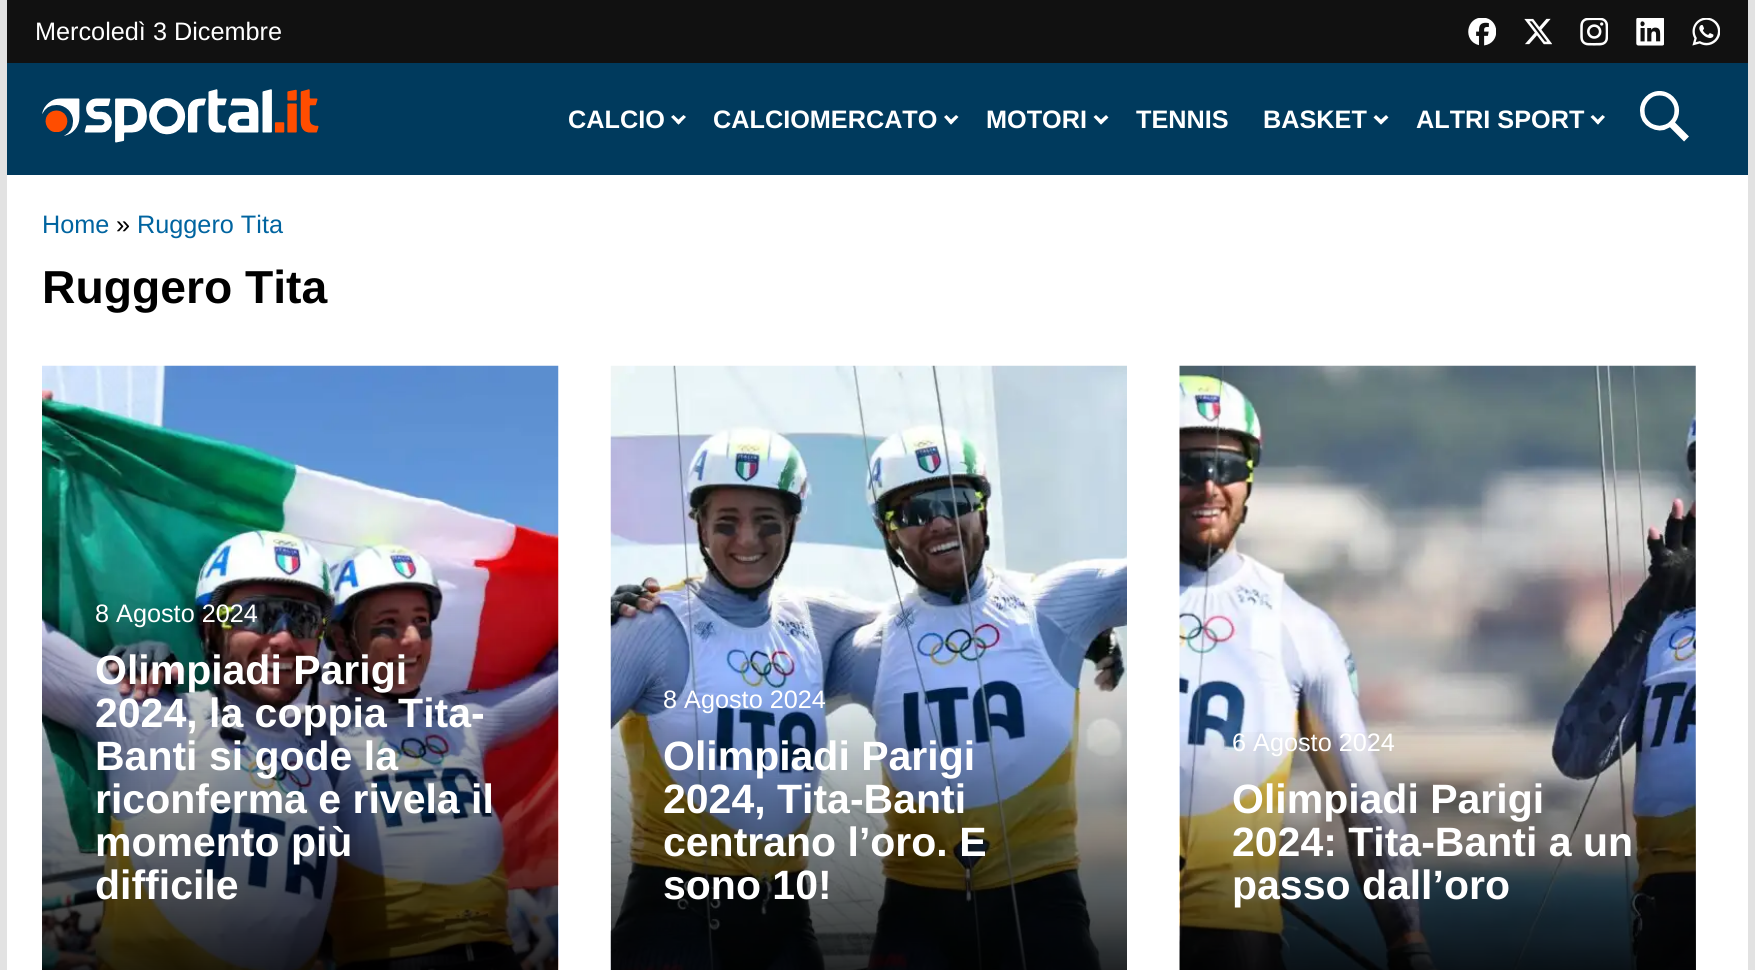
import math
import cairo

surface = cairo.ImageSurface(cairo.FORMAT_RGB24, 1755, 970)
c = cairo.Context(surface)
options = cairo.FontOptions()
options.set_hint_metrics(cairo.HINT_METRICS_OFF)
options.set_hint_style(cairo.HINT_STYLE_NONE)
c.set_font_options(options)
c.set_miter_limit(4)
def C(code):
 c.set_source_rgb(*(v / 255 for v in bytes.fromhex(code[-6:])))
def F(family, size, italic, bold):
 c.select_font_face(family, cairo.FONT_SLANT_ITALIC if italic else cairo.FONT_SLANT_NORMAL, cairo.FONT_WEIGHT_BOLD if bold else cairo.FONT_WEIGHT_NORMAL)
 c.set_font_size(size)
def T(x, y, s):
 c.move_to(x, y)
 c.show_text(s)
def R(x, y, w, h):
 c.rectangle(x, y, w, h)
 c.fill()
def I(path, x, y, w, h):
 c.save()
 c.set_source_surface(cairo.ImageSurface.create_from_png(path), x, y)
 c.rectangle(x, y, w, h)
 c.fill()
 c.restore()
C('e2e2e2')
c.paint()
C('111111')
R(7,0,1741,63)
F('Liberation Sans',25.25,0,0)
C('ffffff')
T(35,40,'Mercoledì 3 Dicembre')
I('1.png',1468,18,28,28)
I('2.png',1524,18,28,27)
I('3.png',1580,18,28,28)
I('4.png',1636,18,28,28)
I('5.png',1692,18,28,28)
C('003a5d')
R(7,63,1741,112)
I('6.png',42,89,277,54)
F('Liberation Sans',25.25,0,1)
C('ffffff')
T(568,128,'CALCIO')
c.new_path()
c.move_to(686,117)
c.line_to(678.5,124.5)
c.line_to(676,122)
c.line_to(683.5,115)
c.close_path()
c.fill()
c.new_path()
c.move_to(681,122)
c.line_to(678.5,124.5)
c.line_to(671,117)
c.line_to(673.5,115)
c.close_path()
c.fill()
T(713,128,'CALCIOMERCATO')
c.new_path()
c.move_to(958.5,117)
c.line_to(951,124.5)
c.line_to(948.5,122)
c.line_to(956,115)
c.close_path()
c.fill()
c.new_path()
c.move_to(953.5,122)
c.line_to(951,124.5)
c.line_to(944,117)
c.line_to(946.5,115)
c.close_path()
c.fill()
T(986,128,'MOTORI')
c.new_path()
c.move_to(1108.5,117.5)
c.line_to(1101,124.5)
c.line_to(1098.5,122)
c.line_to(1106,115)
c.close_path()
c.fill()
c.new_path()
c.move_to(1103.5,122)
c.line_to(1101,124.5)
c.line_to(1093.5,117)
c.line_to(1096,115)
c.close_path()
c.fill()
T(1136,128,'TENNIS')
T(1263,128,'BASKET')
c.new_path()
c.move_to(1388.5,117.5)
c.line_to(1381,124.5)
c.line_to(1378.5,122)
c.line_to(1386,115)
c.close_path()
c.fill()
c.new_path()
c.move_to(1383.5,122)
c.line_to(1381,124.5)
c.line_to(1373.5,117.5)
c.line_to(1376,115)
c.close_path()
c.fill()
T(1416,128,'ALTRI SPORT')
c.new_path()
c.move_to(1605,117)
c.line_to(1598,124.5)
c.line_to(1595.5,122)
c.line_to(1602.5,115)
c.close_path()
c.fill()
c.new_path()
c.move_to(1600,122)
c.line_to(1598,124.5)
c.line_to(1590.5,117)
c.line_to(1593,115)
c.close_path()
c.fill()
I('7.png',1640,91,49,51)
R(7,175,1741,795)
F('Liberation Sans',25.25,0,0)
C('0064a0')
T(42,233,'Home')
C('000000')
T(116,233,'»')
C('0064a0')
T(137,233,'Ruggero Tita')
F('Liberation Sans',46.25,0,1)
C('000000')
T(42,303,'Ruggero Tita')
I('8.png',42,365,517,605)
F('Liberation Sans',25.25,0,0)
C('ffffff')
T(95,622,'8 Agosto 2024')
F('Liberation Sans',41,0,1)
T(95,684,'Olimpiadi Parigi')
T(95,727,'2024, la coppia Tita-')
T(95,770,'Banti si gode la')
T(95,813,'riconferma e rivela il')
T(95,856,'momento più')
T(95,899,'difficile')
I('9.png',610,365,517,605)
F('Liberation Sans',25.25,0,0)
T(663,708,'8 Agosto 2024')
F('Liberation Sans',41,0,1)
T(663,770,'Olimpiadi Parigi')
T(663,813,'2024, Tita-Banti')
T(663,856,'centrano l’oro. E')
T(663,899,'sono 10!')
I('10.png',1179,365,517,605)
gradient = cairo.LinearGradient(1438,726,1438,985)
gradient.add_color_stop_rgba(0,0,0,0,0)
gradient.add_color_stop_rgba(1,0,0,0,.9)
c.set_source(gradient)
R(1180,732,516,238)
F('Liberation Sans',25.25,0,0)
C('ffffff')
T(1232,751,'6 Agosto 2024')
F('Liberation Sans',41,0,1)
T(1232,813,'Olimpiadi Parigi')
T(1232,856,'2024: Tita-Banti a un')
T(1232,899,'passo dall’oro')
surface.write_to_png('o.png')
